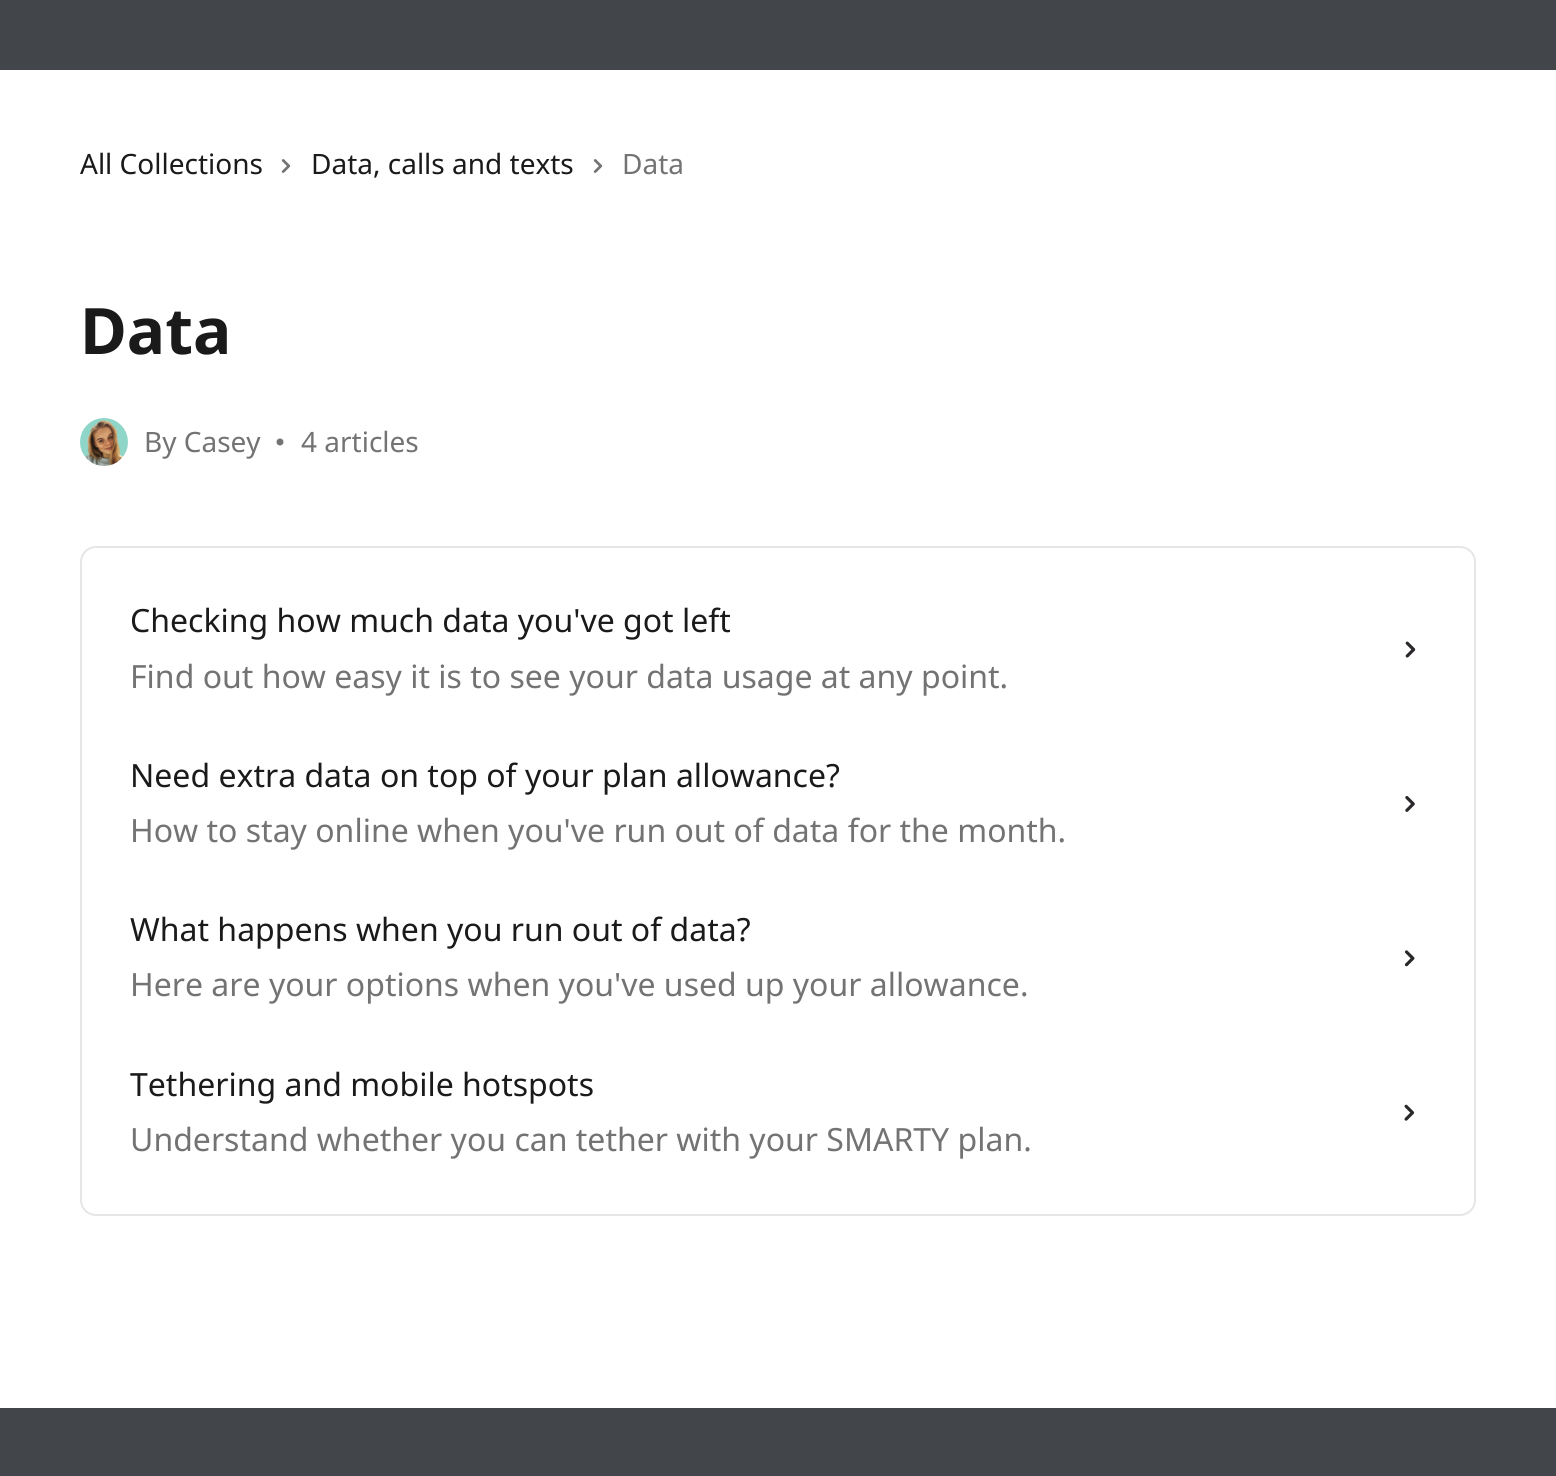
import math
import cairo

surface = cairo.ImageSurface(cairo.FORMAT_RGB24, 1556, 1476)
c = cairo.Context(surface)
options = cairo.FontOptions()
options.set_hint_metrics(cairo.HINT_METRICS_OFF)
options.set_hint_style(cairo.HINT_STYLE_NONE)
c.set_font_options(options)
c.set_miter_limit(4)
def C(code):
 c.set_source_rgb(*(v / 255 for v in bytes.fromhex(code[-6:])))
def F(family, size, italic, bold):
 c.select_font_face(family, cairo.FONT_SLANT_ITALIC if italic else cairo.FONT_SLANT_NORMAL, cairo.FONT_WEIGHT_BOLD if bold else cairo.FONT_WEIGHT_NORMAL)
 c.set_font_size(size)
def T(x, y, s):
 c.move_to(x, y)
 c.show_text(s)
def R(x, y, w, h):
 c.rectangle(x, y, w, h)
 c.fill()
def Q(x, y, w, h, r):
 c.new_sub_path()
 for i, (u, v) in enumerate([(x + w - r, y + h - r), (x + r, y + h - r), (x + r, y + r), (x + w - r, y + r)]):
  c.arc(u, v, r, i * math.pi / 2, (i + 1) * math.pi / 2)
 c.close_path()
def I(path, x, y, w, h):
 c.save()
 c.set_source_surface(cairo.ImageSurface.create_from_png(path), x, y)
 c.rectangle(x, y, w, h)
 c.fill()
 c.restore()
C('ffffff')
c.paint()
C('42454a')
R(0,0,1556,70)
F('Noto Sans',28,0,0)
C('1a1a1a')
T(80,174,'All Collections')
I('1.png',281,159,10,14)
T(311,174,'Data, calls and texts')
I('1.png',593,159,10,14)
C('737373')
T(622,174,'Data')
F('Noto Sans',64,0,1)
C('1a1a1a')
T(80,354,'Data')
I('2.png',80,418,48,48)
F('Noto Sans',28,0,0)
C('737373')
T(144,452,'By Casey')
I('3.png',276,438,8,8)
T(301,452,'4 articles')
Q(81,547,1394,668,15)
C('e6e6e6')
c.stroke()
F('Noto Sans',32,0,0)
C('1a1a1a')
T(130,632,'Checking how much data you\'ve got left')
C('737373')
T(130,688,'Find out how easy it is to see your data usage at any point.')
I('4.png',1405,641,11,17)
C('1a1a1a')
T(130,787,'Need extra data on top of your plan allowance?')
C('737373')
T(130,842,'How to stay online when you\'ve run out of data for the month.')
I('5.png',1405,796,10,16)
C('1a1a1a')
T(130,941,'What happens when you run out of data?')
C('737373')
T(130,996,'Here are your options when you\'ve used up your allowance.')
I('6.png',1404,950,11,17)
C('1a1a1a')
T(130,1096,'Tethering and mobile hotspots')
C('737373')
T(130,1151,'Understand whether you can tether with your SMARTY plan.')
I('7.png',1404,1104,11,17)
C('42454a')
R(0,1408,1556,68)
surface.write_to_png('o.png')
